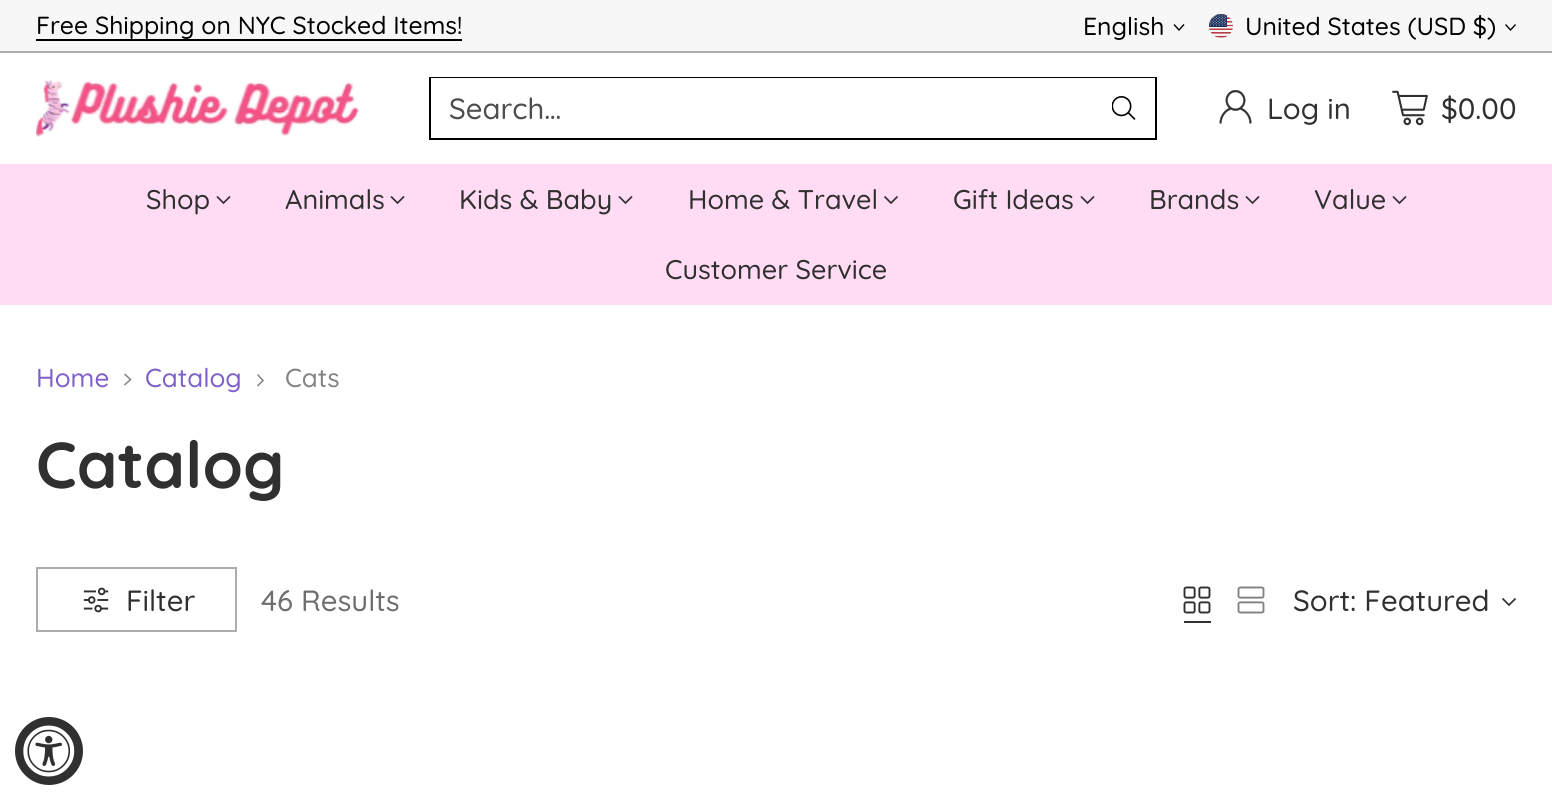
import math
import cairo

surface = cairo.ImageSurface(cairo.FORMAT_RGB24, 1552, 799)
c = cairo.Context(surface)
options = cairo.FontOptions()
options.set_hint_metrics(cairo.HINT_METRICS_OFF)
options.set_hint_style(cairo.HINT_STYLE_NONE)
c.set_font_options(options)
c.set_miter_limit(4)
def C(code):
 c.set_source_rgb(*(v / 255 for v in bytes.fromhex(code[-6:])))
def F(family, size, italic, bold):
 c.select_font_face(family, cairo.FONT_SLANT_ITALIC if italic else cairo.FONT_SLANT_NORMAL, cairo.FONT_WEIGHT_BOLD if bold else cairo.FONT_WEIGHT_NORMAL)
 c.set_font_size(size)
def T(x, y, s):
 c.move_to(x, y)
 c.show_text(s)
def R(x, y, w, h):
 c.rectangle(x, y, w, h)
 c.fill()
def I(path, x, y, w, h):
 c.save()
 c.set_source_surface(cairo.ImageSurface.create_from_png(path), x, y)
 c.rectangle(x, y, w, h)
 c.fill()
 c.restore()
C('ffffff')
c.paint()
C('f7f7f7')
R(0,0,1552,51)
C('adadad')
R(0,51,1552,2)
F('Quicksand Medium',24.7,0,0)
C('000000')
T(36,34,'Free Shipping on NYC Stocked Items!')
R(36,39,426,2)
T(1083,35,'English')
c.new_path()
c.move_to(1174,24.5)
c.line_to(1179,30)
c.line_to(1184,24.5)
c.set_line_width(1.4)
c.stroke()
I('1.png',1209,14,24,24)
T(1245,35,'United States (USD $)')
c.new_path()
c.move_to(1505.5,24.5)
c.line_to(1510.5,30)
c.line_to(1515.5,24.5)
c.stroke()
I('2.png',36,79,324,58)
c.rectangle(430,78,726,61)
c.set_line_width(2)
c.stroke()
C('ffffff')
R(431,78,724,1)
F('Quicksand Medium',29.25,0,0)
C('4d4d4d')
T(449,119,'Search…')
I('3.png',1112,96,24,24)
I('4.png',1219,90,33,34)
C('303030')
T(1267,119,'Log in')
I('5.png',1392,90,36,36)
T(1441,119,'$0.00')
C('ffdcf4')
R(0,164,1552,141)
F('Quicksand Medium',27,0,0)
C('303030')
T(146,209,'Shop')
c.new_path()
c.move_to(217,196.5)
c.line_to(223.5,203)
c.line_to(230,196.5)
c.set_line_width(1.7)
c.stroke()
T(285,209,'Animals')
c.new_path()
c.move_to(391,196.5)
c.line_to(397.5,203)
c.line_to(404,196.5)
c.stroke()
T(459,209,'Kids & Baby')
c.new_path()
c.move_to(619,196.5)
c.line_to(625.5,203)
c.line_to(632,196.5)
c.stroke()
T(688,209,'Home & Travel')
c.new_path()
c.move_to(884.5,196.5)
c.line_to(891,203)
c.line_to(897.5,196.5)
c.stroke()
T(953,209,'Gift Ideas')
c.new_path()
c.move_to(1081,196.5)
c.line_to(1087.5,203)
c.line_to(1094,196.5)
c.stroke()
T(1149,209,'Brands')
c.new_path()
c.move_to(1246,196.5)
c.line_to(1252.5,203)
c.line_to(1259,196.5)
c.stroke()
T(1314,209,'Value')
c.new_path()
c.move_to(1393,196.5)
c.line_to(1399.5,203)
c.line_to(1406,196.5)
c.stroke()
T(665,279,'Customer Service')
F('Quicksand Medium',26,0,0)
C('7f5fca')
T(36,387,'Home')
c.new_path()
c.move_to(124.5,385)
c.line_to(130.5,379.5)
c.line_to(124.5,374)
C('838383')
c.set_line_width(1.5)
c.stroke()
C('7f5fca')
T(145,387,'Catalog')
c.new_path()
c.move_to(257.5,386)
c.line_to(263,380.5)
c.line_to(257.5,374.5)
C('838383')
c.stroke()
T(285,387,'Cats')
F('Quicksand',65,0,1)
C('303030')
T(36,488,'Catalog')
c.rectangle(37,568,199,63)
C('acacac')
c.set_line_width(2)
c.stroke()
I('6.png',83,587,26,26)
F('Quicksand Medium',29.25,0,0)
C('303030')
T(126,611,'Filter')
C('6e6e6e')
T(261,611,'46 Results')
I('7.png',1183,586,28,28)
C('303030')
R(1184,621,27,2)
I('8.png',1237,586,28,28)
T(1293,611,'Sort: Featured')
c.new_path()
c.move_to(1502.5,598.5)
c.line_to(1509,605)
c.line_to(1515.5,598.5)
c.set_line_width(1.7)
c.stroke()
c.arc(49,751,34,0,2 * math.pi)
c.fill()
I('9.png',23,725,52,52)
surface.write_to_png('o.png')
